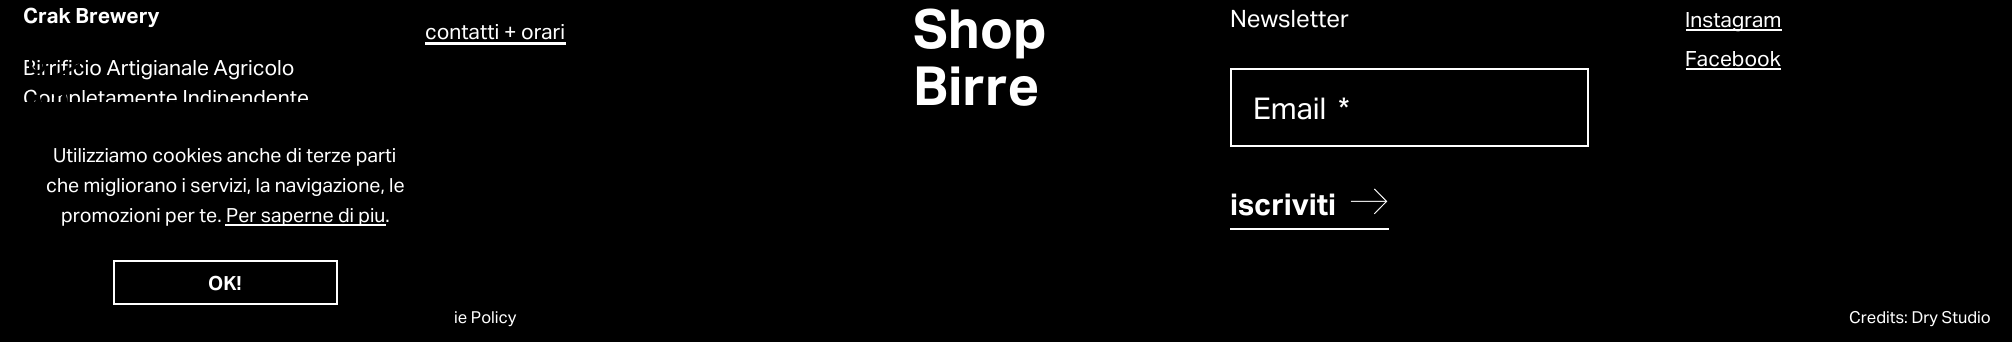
import math
import cairo

surface = cairo.ImageSurface(cairo.FORMAT_RGB24, 2012, 342)
c = cairo.Context(surface)
options = cairo.FontOptions()
options.set_hint_metrics(cairo.HINT_METRICS_OFF)
options.set_hint_style(cairo.HINT_STYLE_NONE)
c.set_font_options(options)
c.set_miter_limit(4)
def C(code):
 c.set_source_rgb(*(v / 255 for v in bytes.fromhex(code[-6:])))
def F(family, size, italic, bold):
 c.select_font_face(family, cairo.FONT_SLANT_ITALIC if italic else cairo.FONT_SLANT_NORMAL, cairo.FONT_WEIGHT_BOLD if bold else cairo.FONT_WEIGHT_NORMAL)
 c.set_font_size(size)
def T(x, y, s):
 c.move_to(x, y)
 c.show_text(s)
def R(x, y, w, h):
 c.rectangle(x, y, w, h)
 c.fill()
def I(path, x, y, w, h):
 c.save()
 c.set_source_surface(cairo.ImageSurface.create_from_png(path), x, y)
 c.rectangle(x, y, w, h)
 c.fill()
 c.restore()
C('000000')
c.paint()
F('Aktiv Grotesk',21,0,1)
C('ffffff')
T(23,23,'Crak Brewery')
F('Aktiv Grotesk',21,0,0)
T(23,75,'Birrificio Artigianale Agricolo')
T(23,105,'Completamente Indipendente')
T(425,39,'contatti + orari')
R(425,42,141,3)
F('Aktiv Grotesk',54,0,1)
T(913,48,'Shop')
T(913,105,'Birre')
F('Aktiv Grotesk',24,0,0)
T(1230,27,'Newsletter')
c.rectangle(1231,69,357,77)
c.stroke()
F('Aktiv Grotesk',30,0,0)
T(1253,119,'Email')
T(1338,119,'*')
I('1.png',1350,188,38,27)
F('Aktiv Grotesk',30,0,1)
T(1230,215,'iscriviti')
R(1230,228,159,2)
R(1686,29,96,2)
F('Aktiv Grotesk',21,0,0)
T(1685,27,'Instagram')
T(1685,66,'Facebook')
R(1686,68,95,2)
F('Aktiv Grotesk',16.5,0,0)
T(454,323,'ie Policy')
T(1849,323,'Credits: Dry Studio')
c.save()
c.rectangle(23,63,57,30)
c.clip()
C('000000')
c.new_path()
c.move_to(22,90)
c.line_to(22,93)
c.line_to(80,67)
c.line_to(80,63)
c.close_path()
c.fill()
c.restore()
I('2.png',29,60,18,14)
I('3.png',57,60,1,3)
C('000000')
c.new_path()
c.move_to(36.5,95.5)
c.line_to(28.5,129.5)
c.line_to(32,129.5)
c.line_to(34.5,119.5)
c.line_to(41.5,116.5)
c.line_to(45,129.5)
c.line_to(48.5,129.5)
c.line_to(39.5,94.5)
c.close_path()
c.move_to(40.5,112.5)
c.line_to(36,115)
c.line_to(38.5,104)
c.close_path()
c.fill()
c.new_path()
c.move_to(73,90)
c.line_to(73,86)
c.line_to(57,93)
c.line_to(57,86)
c.line_to(54,87)
c.line_to(54,129)
c.line_to(57,129)
c.line_to(57,97)
c.line_to(62,95)
c.line_to(71,129)
c.line_to(74,129)
c.line_to(66,94)
c.close_path()
c.fill()
R(24,102,284,8)
F('Aktiv Grotesk',19.5,0,0)
C('ffffff')
T(53,162,'Utilizziamo cookies anche di terze parti')
T(46,192,'che migliorano i servizi, la navigazione, le')
T(61,222,'promozioni per te.')
R(225,224,161,2)
T(226,222,'Per saperne di piu.')
c.rectangle(114,261,223,43)
c.stroke()
F('Aktiv Grotesk',19.5,0,1)
T(208,290,'OK!')
surface.write_to_png('o.png')
